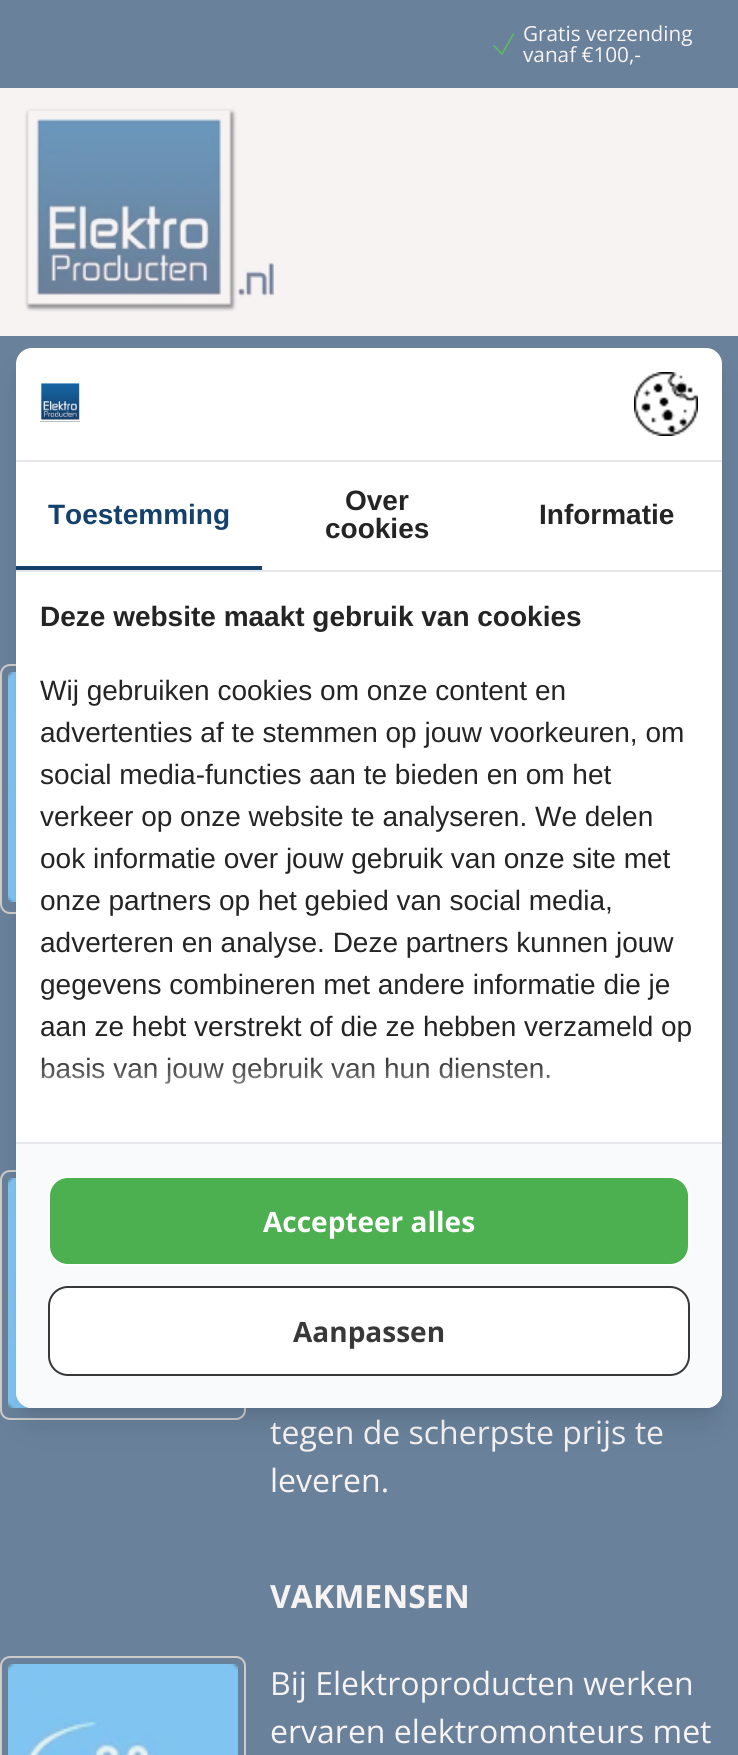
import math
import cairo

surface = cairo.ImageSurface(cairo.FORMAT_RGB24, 738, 1755)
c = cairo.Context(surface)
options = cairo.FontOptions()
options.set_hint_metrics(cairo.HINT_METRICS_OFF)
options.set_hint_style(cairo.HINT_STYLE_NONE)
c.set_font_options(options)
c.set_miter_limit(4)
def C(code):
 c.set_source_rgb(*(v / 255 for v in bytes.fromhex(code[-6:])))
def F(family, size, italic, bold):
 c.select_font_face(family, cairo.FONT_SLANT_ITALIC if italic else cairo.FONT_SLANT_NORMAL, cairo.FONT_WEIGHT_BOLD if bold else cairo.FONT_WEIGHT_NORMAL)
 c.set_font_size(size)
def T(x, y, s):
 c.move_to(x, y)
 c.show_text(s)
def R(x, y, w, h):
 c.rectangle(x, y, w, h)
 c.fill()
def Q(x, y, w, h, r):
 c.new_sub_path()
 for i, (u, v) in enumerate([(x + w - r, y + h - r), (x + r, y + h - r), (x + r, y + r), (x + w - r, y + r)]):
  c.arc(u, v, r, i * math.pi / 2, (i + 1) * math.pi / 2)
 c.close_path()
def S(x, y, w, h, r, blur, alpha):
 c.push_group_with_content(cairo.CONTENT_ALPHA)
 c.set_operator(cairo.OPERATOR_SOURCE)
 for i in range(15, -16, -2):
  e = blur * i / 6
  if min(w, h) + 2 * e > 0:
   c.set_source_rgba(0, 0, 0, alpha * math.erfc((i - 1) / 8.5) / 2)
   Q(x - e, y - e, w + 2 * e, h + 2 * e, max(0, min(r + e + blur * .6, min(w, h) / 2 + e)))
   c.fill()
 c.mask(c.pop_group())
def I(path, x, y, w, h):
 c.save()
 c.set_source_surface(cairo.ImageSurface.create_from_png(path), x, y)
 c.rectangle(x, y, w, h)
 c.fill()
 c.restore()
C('f7f3f3')
c.paint()
C('69819b')
R(0,0,738,88)
c.new_path()
c.move_to(494,46)
c.line_to(502,54)
c.line_to(513.5,34)
C('5ebb5a')
c.set_line_width(1.6)
c.set_line_cap(cairo.LINE_CAP_ROUND)
c.set_line_join(cairo.LINE_JOIN_ROUND)
c.stroke()
F('Open Sans',20.75,0,0)
C('f7f3f3')
T(523,41,'Gratis verzending')
T(523,62,'vanaf €100,-')
I('1.png',24,108,250,204)
C('69819b')
R(0,336,738,1419)
Q(1,665,244,248,9)
C('cecbcb')
c.set_line_width(2)
c.set_line_cap(cairo.LINE_CAP_BUTT)
c.set_line_join(cairo.LINE_JOIN_MITER)
c.stroke()
I('2.png',8,672,8,230)
Q(1,1171,244,248,9)
c.stroke()
I('3.png',8,1178,24,230)
F('Open Sans',32,0,0)
C('f7f3f3')
T(270,1444,'tegen de scherpste prijs te')
T(270,1492,'leveren.')
Q(1,1657,244,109,9)
C('cecbcb')
c.stroke()
I('4.png',8,1664,230,91)
F('Open Sans',32,0,1)
C('f7f3f3')
T(270,1608,'VAKMENSEN')
F('Open Sans',32,0,0)
T(270,1695,'Bij Elektroproducten werken')
T(270,1743,'ervaren elektromonteurs met')
C('000000')
S(24,364,690,1044,8,6,.1)
S(22,374,694,1048,10,15,.1)
C('ffffff')
Q(16,348,706,1060,16)
c.fill()
C('e5e7eb')
R(16,460,706,2)
I('5.png',40,382,40,40)
I('6.png',634,372,64,64)
R(16,570,706,2)
C('13416c')
R(16,566,246,4)
F('Liberation Sans',28,0,1)
T(48,524,'Toestemming')
C('242424')
T(345,510,'Over')
T(325,538,'cookies')
T(539,524,'Informatie')
T(40,626,'Deze website maakt gebruik van cookies')
F('Liberation Sans',28,0,0)
T(40,700,'Wij gebruiken cookies om onze content en')
T(40,742,'advertenties af te stemmen op jouw voorkeuren, om')
T(40,784,'social media-functies aan te bieden en om het')
T(40,826,'verkeer op onze website te analyseren. We delen')
T(40,868,'ook informatie over jouw gebruik van onze site met')
T(40,910,'onze partners op het gebied van social media,')
T(40,952,'adverteren en analyse. Deze partners kunnen jouw')
T(40,994,'gegevens combineren met andere informatie die je')
T(40,1036,'aan ze hebt verstrekt of die ze hebben verzameld op')
T(40,1078,'basis van jouw gebruik van hun diensten.')
c.save()
Q(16,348,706,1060,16)
c.clip()
C('ffffff')
S(0,1086,738,298,0,20,1)
c.restore()
C('f9fafb')
c.new_path()
c.move_to(16,1142)
c.line_to(722,1142)
c.line_to(722,1392)
c.curve_to(722,1401,715,1408,706,1408)
c.line_to(32,1408)
c.curve_to(23,1408,16,1401,16,1392)
c.close_path()
c.fill()
C('e5e7eb')
R(16,1142,706,2)
C('4caf50')
Q(49,1177,640,88,19)
c.fill_preserve()
C('ffffff')
c.stroke()
F('Open Sans',28,0,1)
T(263,1232,'Accepteer alles')
Q(49,1287,640,88,19)
c.fill_preserve()
C('383838')
c.stroke()
T(293,1342,'Aanpassen')
surface.write_to_png('o.png')
